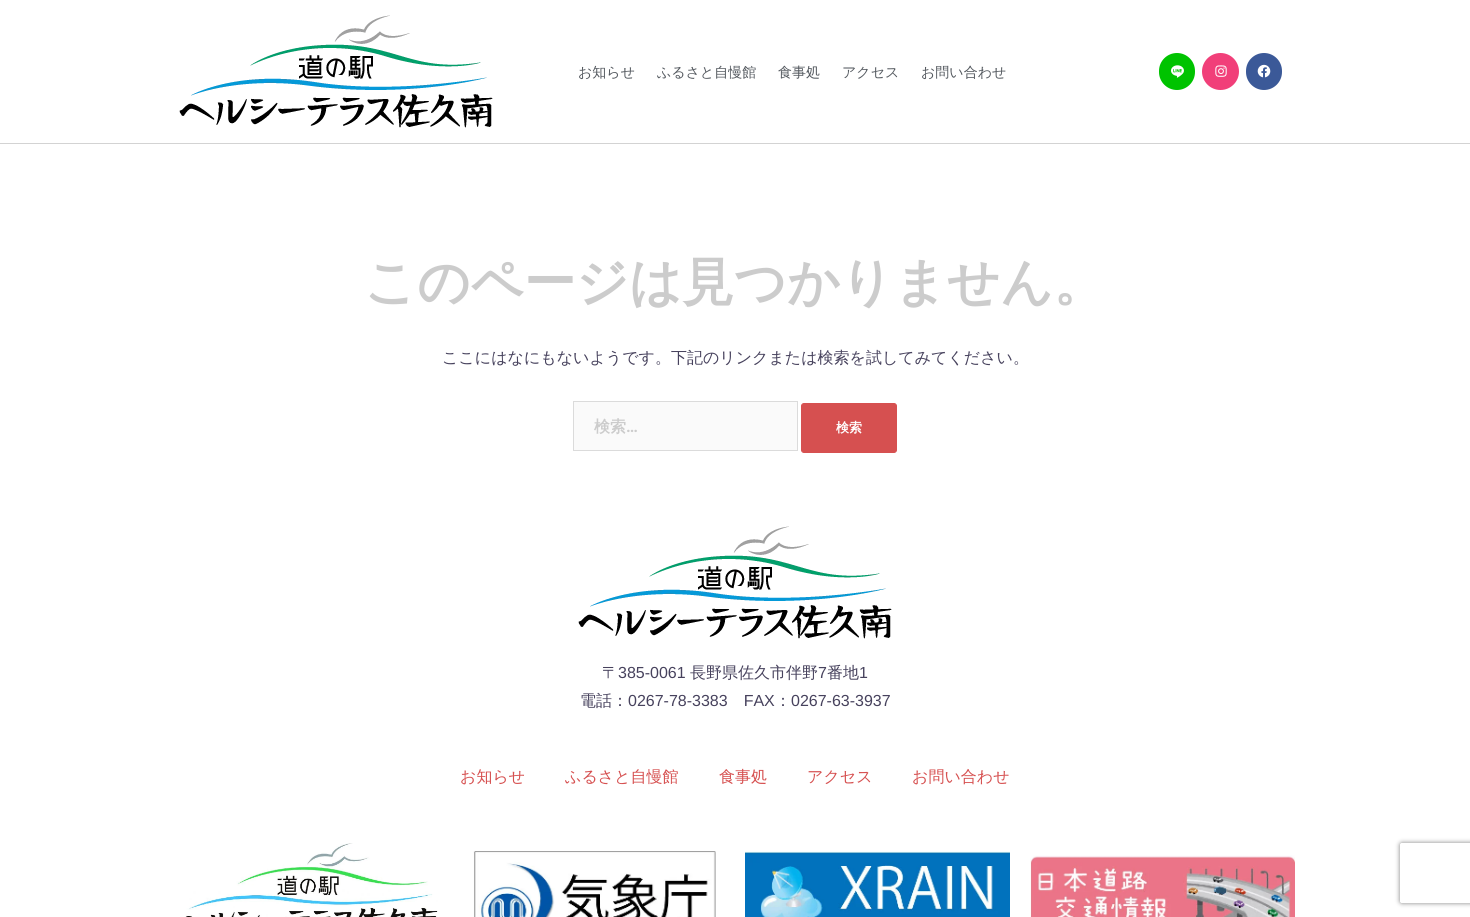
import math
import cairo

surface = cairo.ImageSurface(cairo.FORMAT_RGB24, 1470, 917)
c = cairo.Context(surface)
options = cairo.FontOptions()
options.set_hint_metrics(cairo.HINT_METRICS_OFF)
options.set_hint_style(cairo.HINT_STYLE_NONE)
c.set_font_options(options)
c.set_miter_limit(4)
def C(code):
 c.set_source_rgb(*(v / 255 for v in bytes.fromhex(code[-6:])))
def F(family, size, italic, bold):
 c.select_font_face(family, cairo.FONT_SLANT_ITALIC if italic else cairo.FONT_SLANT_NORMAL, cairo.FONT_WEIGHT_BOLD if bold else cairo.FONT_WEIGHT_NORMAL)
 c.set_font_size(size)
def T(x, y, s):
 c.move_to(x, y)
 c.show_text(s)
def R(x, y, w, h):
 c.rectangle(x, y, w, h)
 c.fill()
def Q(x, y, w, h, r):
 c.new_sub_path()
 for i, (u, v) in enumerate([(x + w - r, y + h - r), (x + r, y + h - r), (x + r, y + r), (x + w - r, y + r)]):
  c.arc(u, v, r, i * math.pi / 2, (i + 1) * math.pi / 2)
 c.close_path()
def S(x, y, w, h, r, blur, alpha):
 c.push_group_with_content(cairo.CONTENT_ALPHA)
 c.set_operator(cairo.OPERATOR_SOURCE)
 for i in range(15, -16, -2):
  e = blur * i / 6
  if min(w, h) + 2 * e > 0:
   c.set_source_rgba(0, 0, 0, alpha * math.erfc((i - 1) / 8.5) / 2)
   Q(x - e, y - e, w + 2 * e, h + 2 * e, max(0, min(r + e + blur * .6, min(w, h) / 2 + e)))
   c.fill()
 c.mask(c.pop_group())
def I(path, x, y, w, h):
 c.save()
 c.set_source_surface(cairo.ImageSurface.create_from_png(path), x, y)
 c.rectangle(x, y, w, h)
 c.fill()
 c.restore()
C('ffffff')
c.paint()
C('d3d3d3')
R(0,143,1470,1)
I('1.png',179,15,314,113)
F('WenQuanYi Zen Hei Medium',14,0,0)
C('54595f')
T(578,77,'お知らせ')
T(657,77,'ふるさと自慢館')
T(778,77,'食事処')
T(842,77,'アクセス')
T(921,77,'お問い合わせ')
C('00c300')
Q(1159,53,36,37,18)
c.fill()
I('2.png',1171,65,13,13)
C('f13f79')
c.arc(1220.5,71.5,18.5,0,2 * math.pi)
c.fill()
I('3.png',1215,65,12,12)
C('3b5998')
Q(1246,53,36,37,18)
c.fill()
I('4.png',1257,64,14,14)
F('WenQuanYi Zen Hei',52,0,1)
C('cccccc')
T(364,300,'このページは見つかりません。')
F('WenQuanYi Zen Hei Medium',16,0,0)
C('47425d')
T(442,363,'ここにはなにもないようです。下記のリンクまたは検索を試してみてください。')
C('fafafa')
c.rectangle(573.5,401.5,224,49)
c.fill_preserve()
C('dbdbdb')
c.set_line_width(1)
c.stroke()
F('WenQuanYi Zen Hei',16,0,1)
C('cccccc')
T(594,432,'検索')
F('Roboto',16,0,1)
T(626,432,'…')
C('d65050')
Q(801.5,403.5,95,49,2.5)
c.fill_preserve()
c.stroke()
F('WenQuanYi Zen Hei',13,0,1)
C('ffffff')
T(836,432,'検索')
I('1.png',578,526,314,113)
F('WenQuanYi Zen Hei Medium',16,0,0)
C('47425d')
T(602,678,'〒')
F('Liberation Sans',16,0,0)
T(618,678,'385-0061')
F('WenQuanYi Zen Hei Medium',16,0,0)
T(690,678,'長野県佐久市伴野')
F('Liberation Sans',16,0,0)
T(818,678,'7')
F('WenQuanYi Zen Hei Medium',16,0,0)
T(827,678,'番地')
F('Liberation Sans',16,0,0)
T(859,678,'1')
F('WenQuanYi Zen Hei Medium',16,0,0)
T(580,706,'電話：')
F('Liberation Sans',16,0,0)
T(628,706,'0267-78-3383 FAX')
F('WenQuanYi Zen Hei Medium',16,0,0)
T(775,706,'：')
F('Liberation Sans',16,0,0)
T(791,706,'0267-63-3937')
F('WenQuanYi Zen Hei Medium',16,0,0)
C('d65050')
T(460,782,'お知らせ')
T(565,782,'ふるさと自慢館')
T(719,782,'食事処')
T(807,782,'アクセス')
T(912,782,'お問い合わせ')
I('5.png',185,843,253,74)
I('6.png',473,851,243,66)
I('7.png',745,851,265,66)
I('8.png',1030,855,265,62)
c.save()
c.set_fill_rule(cairo.FILL_RULE_EVEN_ODD)
c.new_path()
c.move_to(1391,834)
c.line_to(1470,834)
c.line_to(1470,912)
c.line_to(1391,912)
c.close_path()
c.move_to(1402,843)
c.line_to(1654,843)
c.curve_to(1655,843,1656,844,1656,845)
c.line_to(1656,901)
c.curve_to(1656,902,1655,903,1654,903)
c.line_to(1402,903)
c.curve_to(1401,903,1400,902,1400,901)
c.line_to(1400,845)
c.curve_to(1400,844,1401,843,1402,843)
c.close_path()
c.clip()
C('808080')
S(1400,843,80,60,2,2.5,1)
c.restore()
surface.write_to_png('o.png')
